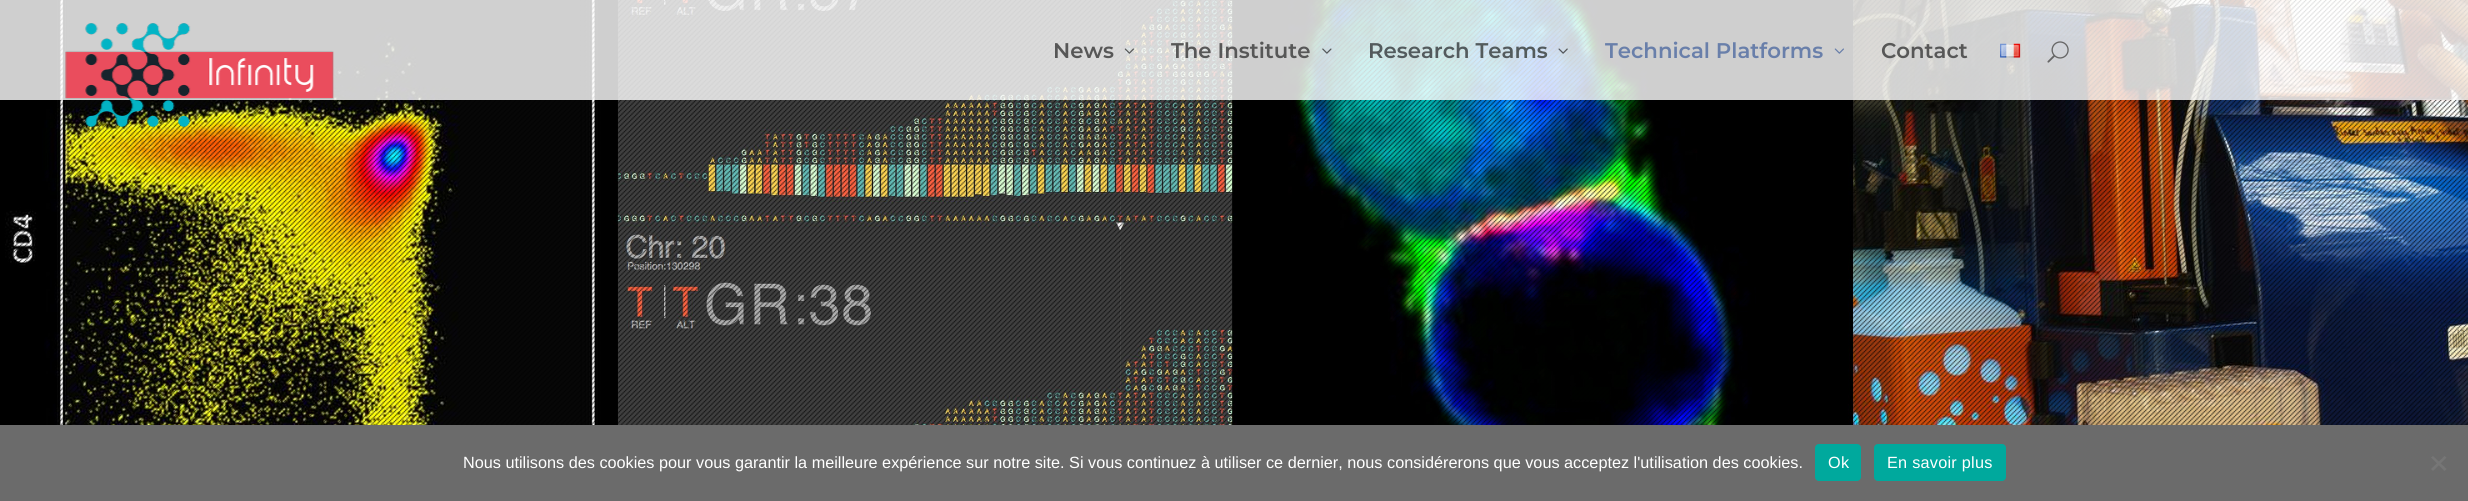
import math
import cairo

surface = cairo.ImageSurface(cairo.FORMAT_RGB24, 2468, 501)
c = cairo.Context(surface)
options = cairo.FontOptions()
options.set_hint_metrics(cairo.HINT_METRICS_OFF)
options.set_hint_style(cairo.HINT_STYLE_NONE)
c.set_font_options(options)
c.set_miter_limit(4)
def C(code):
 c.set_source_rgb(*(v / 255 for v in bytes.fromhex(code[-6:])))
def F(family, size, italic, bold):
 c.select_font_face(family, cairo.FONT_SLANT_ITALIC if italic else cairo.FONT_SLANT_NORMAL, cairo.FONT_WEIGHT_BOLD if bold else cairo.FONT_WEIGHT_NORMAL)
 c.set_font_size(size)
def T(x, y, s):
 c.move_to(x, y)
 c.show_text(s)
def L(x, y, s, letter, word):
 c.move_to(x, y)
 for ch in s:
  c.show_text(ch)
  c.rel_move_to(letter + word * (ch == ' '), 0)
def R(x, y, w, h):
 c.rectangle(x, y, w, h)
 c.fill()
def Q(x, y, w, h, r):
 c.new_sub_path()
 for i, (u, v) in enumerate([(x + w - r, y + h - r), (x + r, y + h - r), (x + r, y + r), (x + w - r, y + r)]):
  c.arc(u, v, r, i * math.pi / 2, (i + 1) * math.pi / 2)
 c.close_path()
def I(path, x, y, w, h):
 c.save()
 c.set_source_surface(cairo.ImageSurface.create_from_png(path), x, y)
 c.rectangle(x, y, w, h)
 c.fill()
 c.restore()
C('ffffff')
c.paint()
I('1.png',0,0,2468,425)
I('2.png',2,0,2466,425)
c.set_source_rgba(1,1,1,0.81)
R(0,0,2468,100)
I('3.png',65,23,269,104)
F('Montserrat SemiBold',21.25,0,0)
C('575757')
T(1053,58,'News')
I('4.png',1124,48,10,6)
T(1171,58,'The Institute')
I('5.png',1322,48,10,6)
C('535b5d')
T(1368,58,'Research Teams')
I('6.png',1558,48,10,6)
C('697faa')
T(1605,58,'Technical Platforms')
I('7.png',1834,48,10,6)
C('575757')
T(1881,58,'Contact')
I('8.png',2000,43,21,15)
I('9.png',2047,41,22,22)
C('6b6b6b')
R(0,425,2468,76)
F('Liberation Sans',16.25,0,0)
C('ffffff')
T(463,468,'Nous utilisons des cookies pour vous garantir la meilleure expérience sur notre site. Si vous continuez à utiliser ce dernier, nous considérerons que vous acceptez l\'utilisation des cookies.')
C('00a99d')
Q(1815,444,46,37,4)
c.fill()
C('ffffff')
L(1828,468,'Ok',.25,0)
C('00a99d')
Q(1874,444,132,37,4)
c.fill()
C('ffffff')
L(1887,468,'En savoir plus',.25,0)
C('767676')
c.new_path()
c.move_to(2444.5,456)
c.line_to(2446.5,457.5)
c.line_to(2433,471)
c.line_to(2431,469)
c.close_path()
c.fill()
c.new_path()
c.move_to(2431,457.5)
c.line_to(2433,456)
c.line_to(2446.5,469)
c.line_to(2444.5,471)
c.close_path()
c.fill()
surface.write_to_png('o.png')
